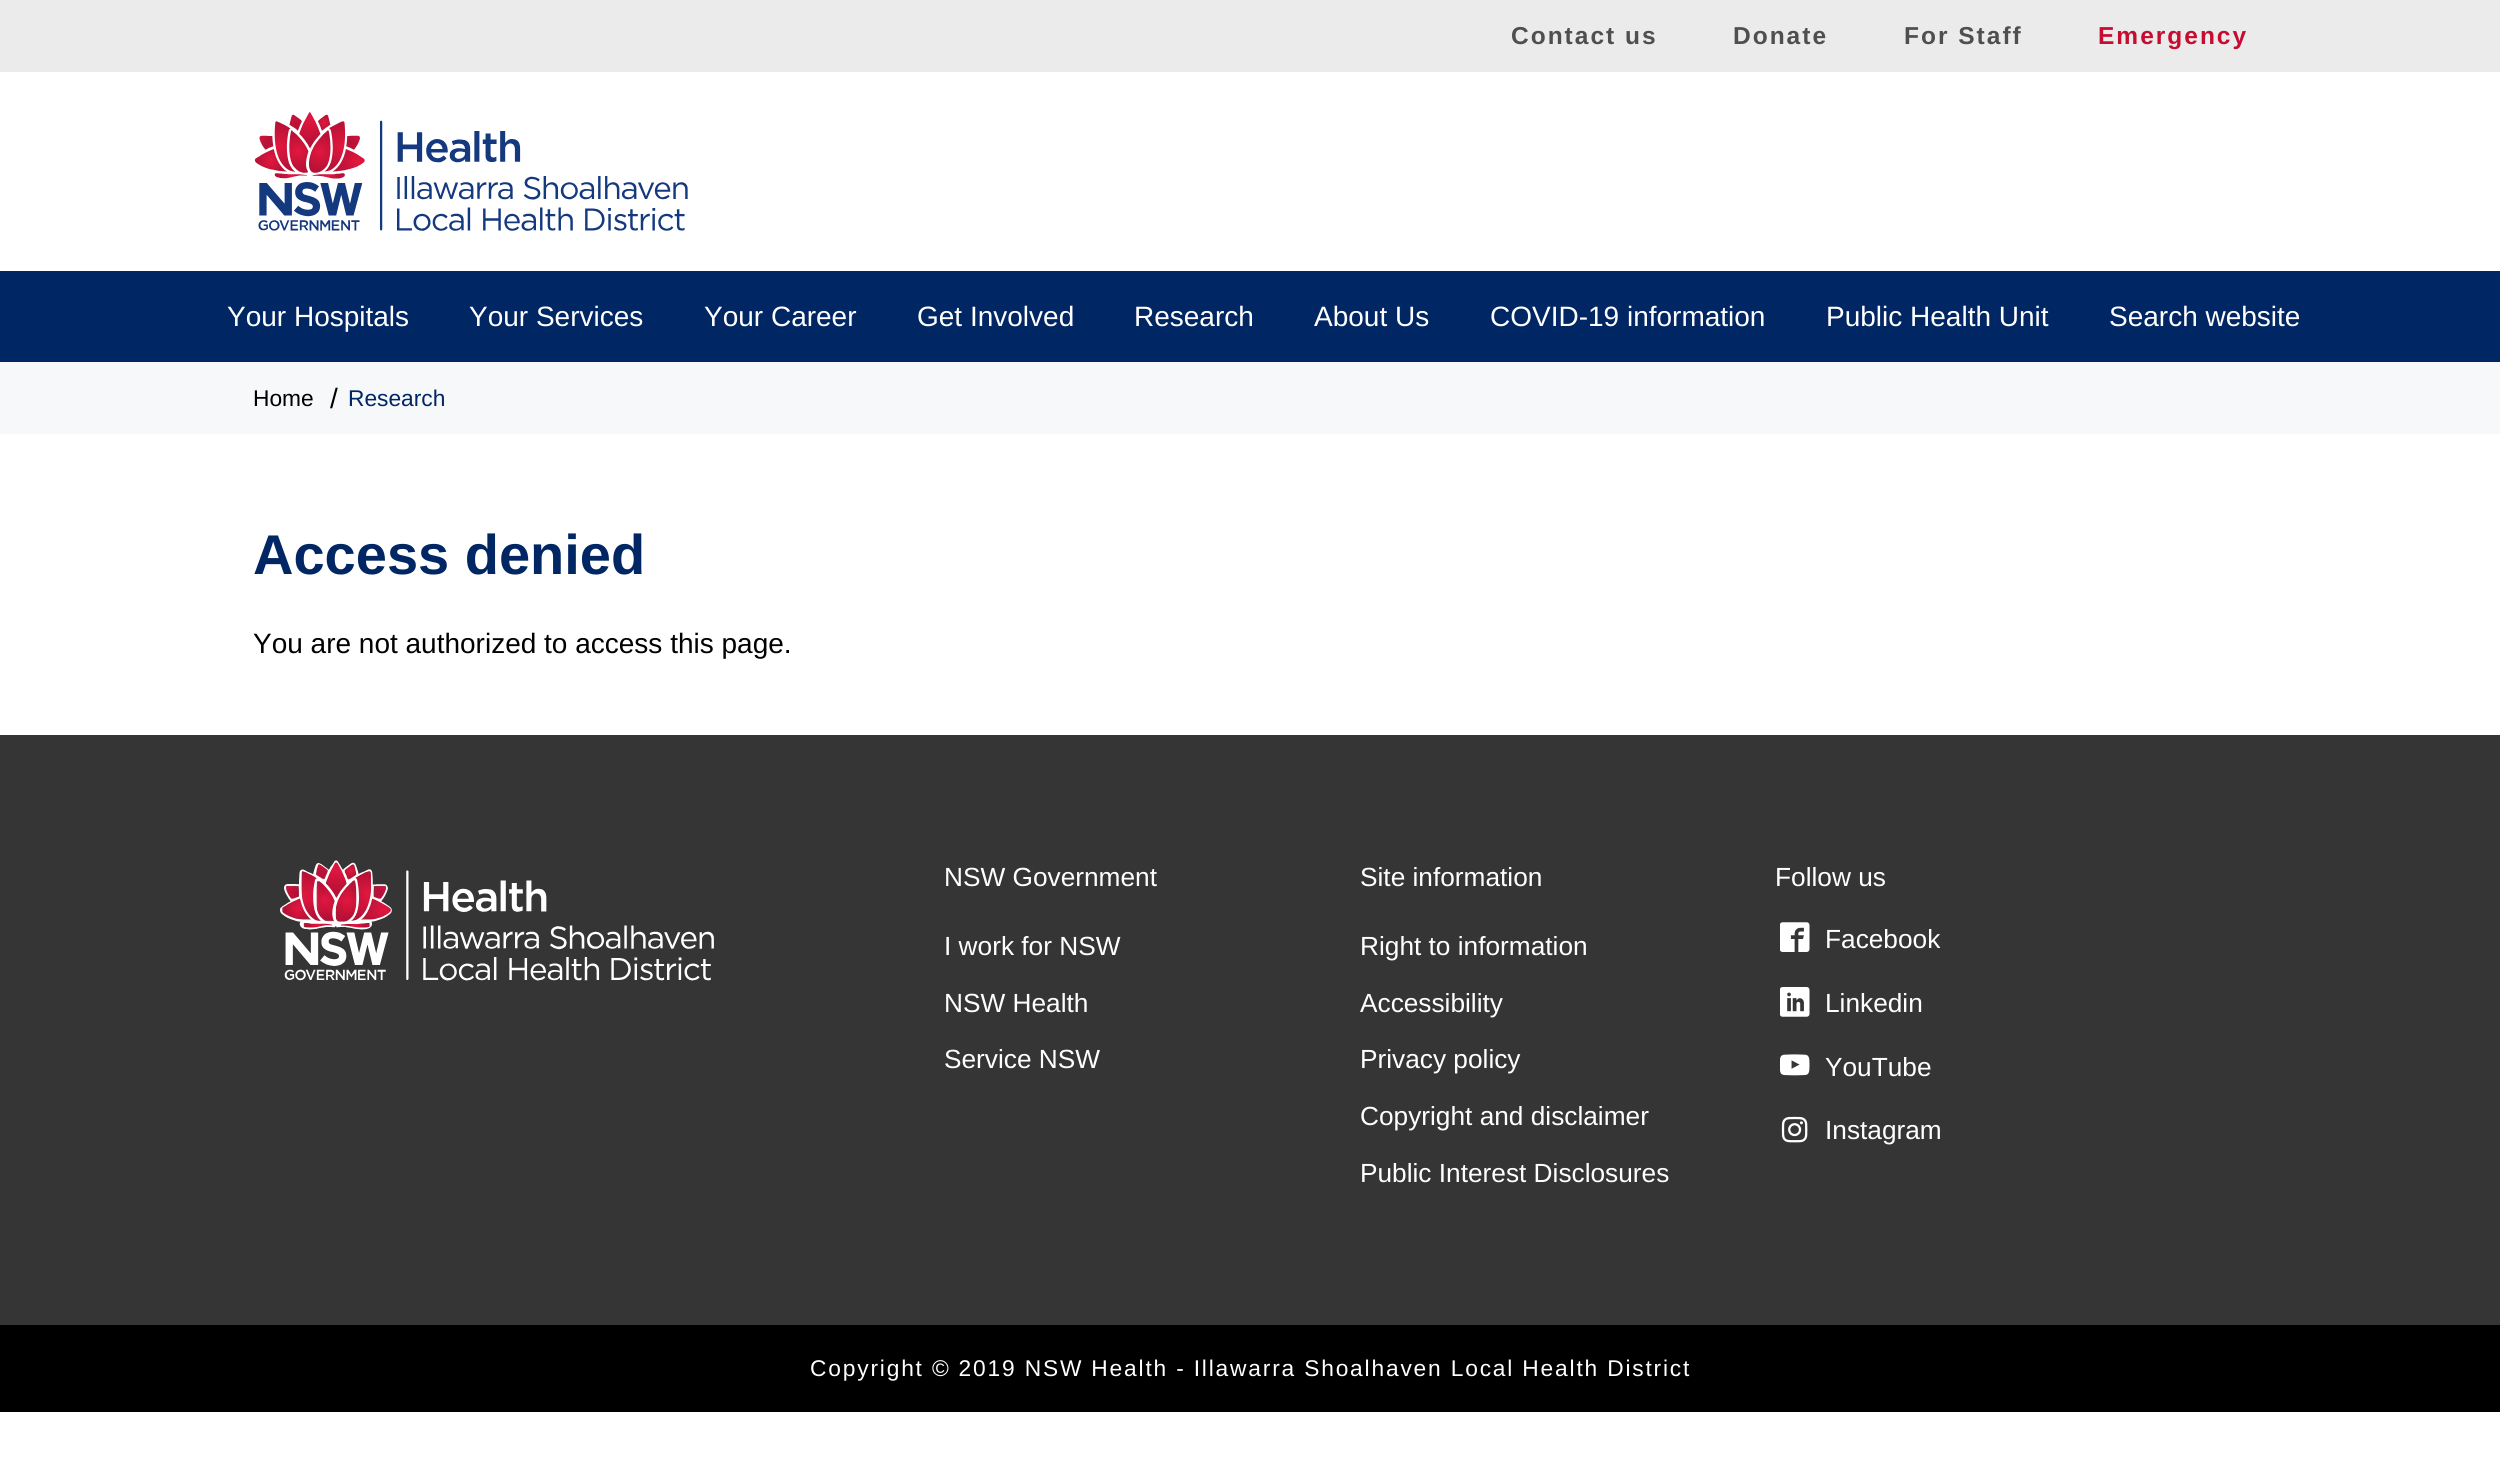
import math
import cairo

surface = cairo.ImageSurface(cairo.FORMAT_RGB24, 2500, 1465)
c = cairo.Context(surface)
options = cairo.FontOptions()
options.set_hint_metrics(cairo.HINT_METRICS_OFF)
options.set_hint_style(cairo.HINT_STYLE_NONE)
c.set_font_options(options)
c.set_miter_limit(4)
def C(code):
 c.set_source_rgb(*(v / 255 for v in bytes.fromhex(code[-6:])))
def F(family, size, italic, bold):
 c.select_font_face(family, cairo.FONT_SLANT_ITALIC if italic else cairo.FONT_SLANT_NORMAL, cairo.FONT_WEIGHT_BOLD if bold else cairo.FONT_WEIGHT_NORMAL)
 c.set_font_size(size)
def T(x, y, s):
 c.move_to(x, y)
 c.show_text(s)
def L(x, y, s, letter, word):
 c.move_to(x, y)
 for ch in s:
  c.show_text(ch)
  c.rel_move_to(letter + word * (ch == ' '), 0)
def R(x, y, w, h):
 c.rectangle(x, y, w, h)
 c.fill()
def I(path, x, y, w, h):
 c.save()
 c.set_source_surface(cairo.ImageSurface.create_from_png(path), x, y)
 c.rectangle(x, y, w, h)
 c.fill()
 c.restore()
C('ffffff')
c.paint()
C('ebebeb')
R(0,0,2500,72)
F('Liberation Sans',24.5,0,1)
C('4f4f4f')
L(1511,44,'Contact us',2,0)
L(1733,44,'Donate',2,0)
L(1904,44,'For Staff',2,0)
C('c60c30')
L(2098,44,'Emergency',2,0)
I('1.png',254,112,434,119)
C('002664')
R(0,271,2500,91)
F('Liberation Sans',28,0,0)
C('ffffff')
T(227,326,'Your Hospitals')
T(469,326,'Your Services')
T(704,326,'Your Career')
T(917,326,'Get Involved')
T(1134,326,'Research')
T(1314,326,'About Us')
T(1490,326,'COVID-19 information')
T(1826,326,'Public Health Unit')
T(2109,326,'Search website')
C('f6f8fa')
R(0,362,2500,72)
F('Liberation Sans',22.75,0,0)
C('000000')
T(253,406,'Home')
F('Liberation Sans',28,0,0)
T(330,408,'/')
F('Liberation Sans',22.75,0,0)
C('002664')
T(348,406,'Research')
F('Liberation Sans',56,0,1)
T(253,574,'Access denied')
F('Liberation Sans',28,0,0)
C('000000')
T(253,653,'You are not authorized to access this page.')
C('363535')
R(0,735,2500,590)
I('2.png',280,860,434,121)
F('Liberation Sans',26.25,0,0)
C('ffffff')
T(944,886,'NSW Government')
T(944,955,'I work for NSW')
T(944,1012,'NSW Health')
T(944,1068,'Service NSW')
T(1360,886,'Site information')
T(1360,955,'Right to information')
T(1360,1012,'Accessibility')
T(1360,1068,'Privacy policy')
T(1360,1125,'Copyright and disclaimer')
T(1360,1182,'Public Interest Disclosures')
T(1775,886,'Follow us')
I('3.png',1780,922,30,30)
T(1825,948,'Facebook')
I('4.png',1780,987,30,30)
T(1825,1012,'Linkedin')
I('5.png',1780,1054,30,22)
T(1825,1076,'YouTube')
I('6.png',1781,1116,27,27)
T(1825,1139,'Instagram')
C('000000')
R(0,1325,2500,87)
F('Liberation Sans',22.75,0,0)
C('ffffff')
L(810,1376,'Copyright © 2019 NSW Health - Illawarra Shoalhaven Local Health District',1.82,0)
surface.write_to_png('o.png')
